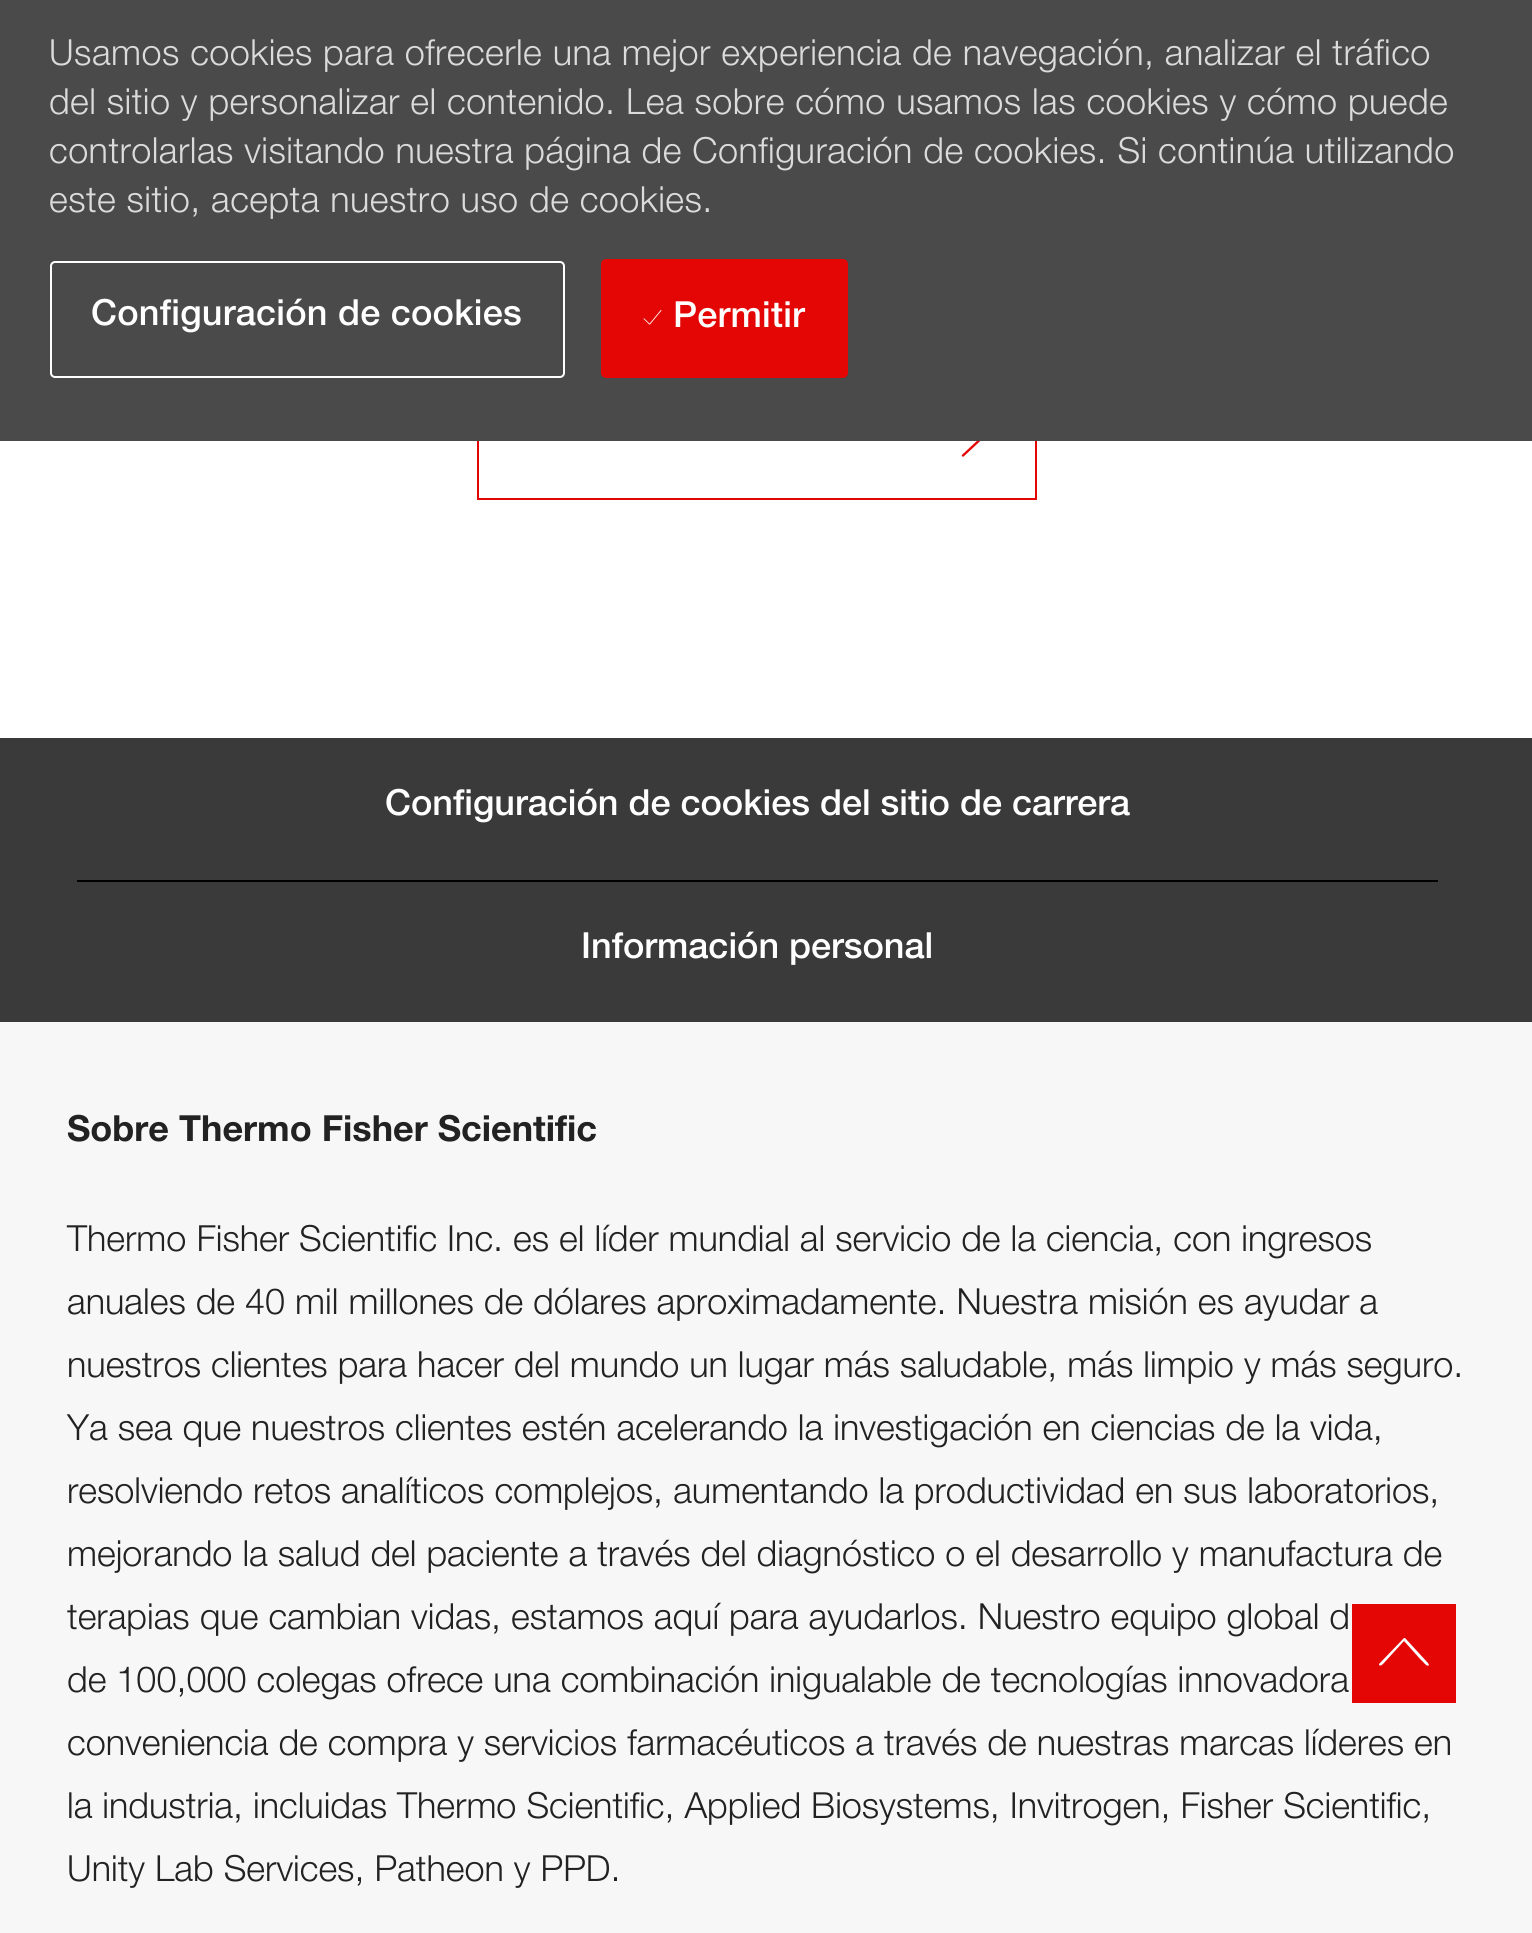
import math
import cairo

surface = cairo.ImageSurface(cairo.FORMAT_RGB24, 1532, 1933)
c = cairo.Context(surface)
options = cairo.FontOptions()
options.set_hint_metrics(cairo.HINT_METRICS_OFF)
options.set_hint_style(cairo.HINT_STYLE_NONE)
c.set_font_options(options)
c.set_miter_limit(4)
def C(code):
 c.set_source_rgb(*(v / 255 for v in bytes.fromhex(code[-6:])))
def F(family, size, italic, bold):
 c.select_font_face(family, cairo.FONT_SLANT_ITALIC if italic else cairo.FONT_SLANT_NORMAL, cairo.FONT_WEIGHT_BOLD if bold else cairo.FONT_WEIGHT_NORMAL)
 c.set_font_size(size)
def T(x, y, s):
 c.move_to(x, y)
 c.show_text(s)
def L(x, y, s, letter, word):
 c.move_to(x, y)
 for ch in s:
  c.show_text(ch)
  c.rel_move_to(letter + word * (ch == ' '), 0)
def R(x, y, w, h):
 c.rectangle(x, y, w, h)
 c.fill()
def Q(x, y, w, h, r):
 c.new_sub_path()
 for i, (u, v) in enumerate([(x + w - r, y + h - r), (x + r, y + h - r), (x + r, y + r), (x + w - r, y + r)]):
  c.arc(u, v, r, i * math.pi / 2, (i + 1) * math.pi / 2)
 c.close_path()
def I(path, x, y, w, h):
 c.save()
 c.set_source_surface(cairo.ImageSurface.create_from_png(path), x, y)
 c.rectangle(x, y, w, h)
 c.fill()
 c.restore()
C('ffffff')
c.paint()
c.rectangle(478,384,558,115)
C('e30605')
c.stroke()
C('4a4a4a')
R(0,0,1532,441)
F('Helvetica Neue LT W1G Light',36,0,0)
C('dbdbdb')
L(49,65,'Usamos cookies para ofrecerle una mejor experiencia de navegación, analizar el tráfico',.45,0)
L(49,114,'del sitio y personalizar el contenido. Lea sobre cómo usamos las cookies y cómo puede',.45,0)
L(49,163,'controlarlas visitando nuestra página de Configuración de cookies. Si continúa utilizando',.45,0)
L(49,212,'este sitio, acepta nuestro uso de cookies.',.45,0)
Q(51,262,513,115,4)
C('ffffff')
c.stroke()
F('Helvetica Neue LT W1G Medium',36,0,0)
L(91,325,'Configuración de cookies',.25,0)
C('e30605')
Q(602,260,245,117,4)
c.fill_preserve()
c.stroke()
I('1.png',643,310,19,15)
C('ffffff')
L(673,327,'Permitir',.25,0)
I('2.png',961,441,20,16)
C('3a3a3a')
R(0,738,1532,284)
C('000000')
R(77,880,1361,2)
C('ffffff')
T(385,815,'Configuración de cookies del sitio de carrera')
T(581,958,'Información personal')
C('f7f7f7')
R(0,1022,1532,911)
F('Helvetica Neue LT W1G',36,0,1)
C('222222')
T(67,1141,'Sobre Thermo Fisher Scientific')
F('Helvetica Neue LT W1G Light',36,0,0)
T(67,1251,'Thermo Fisher Scientific Inc. es el líder mundial al servicio de la ciencia, con ingresos')
T(67,1314,'anuales de 40 mil millones de dólares aproximadamente. Nuestra misión es ayudar a')
T(67,1377,'nuestros clientes para hacer del mundo un lugar más saludable, más limpio y más seguro.')
T(67,1440,'Ya sea que nuestros clientes estén acelerando la investigación en ciencias de la vida,')
T(67,1503,'resolviendo retos analíticos complejos, aumentando la productividad en sus laboratorios,')
T(67,1566,'mejorando la salud del paciente a través del diagnóstico o el desarrollo y manufactura de')
T(67,1629,'terapias que cambian vidas, estamos aquí para ayudarlos. Nuestro equipo global d')
T(67,1692,'de 100,000 colegas ofrece una combinación inigualable de tecnologías innovadora')
T(67,1755,'conveniencia de compra y servicios farmacéuticos a través de nuestras marcas líderes en')
T(67,1818,'la industria, incluidas Thermo Scientific, Applied Biosystems, Invitrogen, Fisher Scientific,')
T(67,1881,'Unity Lab Services, Patheon y PPD.')
C('e30605')
R(1352,1604,104,99)
C('ffffff')
c.new_path()
c.move_to(1405,1638)
c.line_to(1428,1663)
c.line_to(1429,1665)
c.curve_to(1427,1668,1422,1660,1421,1660)
c.line_to(1404,1641)
c.line_to(1383,1664)
c.curve_to(1382,1665,1379,1667,1379,1664)
c.line_to(1404,1638)
c.close_path()
c.fill()
surface.write_to_png('o.png')
